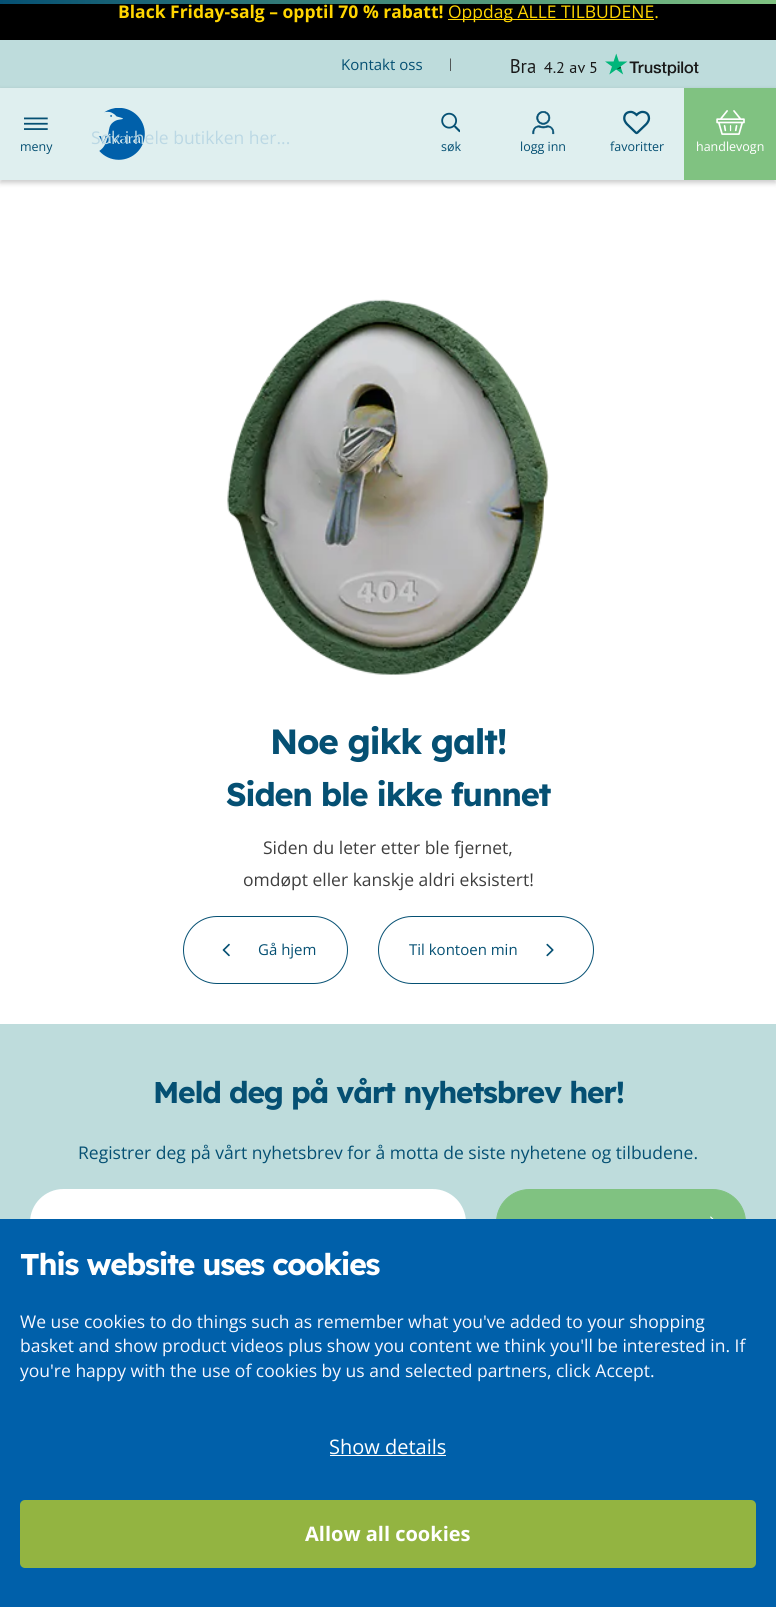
import math
import cairo

surface = cairo.ImageSurface(cairo.FORMAT_RGB24, 776, 1607)
c = cairo.Context(surface)
options = cairo.FontOptions()
options.set_hint_metrics(cairo.HINT_METRICS_OFF)
options.set_hint_style(cairo.HINT_STYLE_NONE)
c.set_font_options(options)
c.set_miter_limit(4)
def C(code):
 c.set_source_rgb(*(v / 255 for v in bytes.fromhex(code[-6:])))
def F(family, size, italic, bold):
 c.select_font_face(family, cairo.FONT_SLANT_ITALIC if italic else cairo.FONT_SLANT_NORMAL, cairo.FONT_WEIGHT_BOLD if bold else cairo.FONT_WEIGHT_NORMAL)
 c.set_font_size(size)
def T(x, y, s):
 c.move_to(x, y)
 c.show_text(s)
def L(x, y, s, letter, word):
 c.move_to(x, y)
 for ch in s:
  c.show_text(ch)
  c.rel_move_to(letter + word * (ch == ' '), 0)
def R(x, y, w, h):
 c.rectangle(x, y, w, h)
 c.fill()
def Q(x, y, w, h, r):
 c.new_sub_path()
 for i, (u, v) in enumerate([(x + w - r, y + h - r), (x + r, y + h - r), (x + r, y + r), (x + w - r, y + r)]):
  c.arc(u, v, r, i * math.pi / 2, (i + 1) * math.pi / 2)
 c.close_path()
def S(x, y, w, h, r, blur, alpha):
 c.push_group_with_content(cairo.CONTENT_ALPHA)
 c.set_operator(cairo.OPERATOR_SOURCE)
 for i in range(15, -16, -2):
  e = blur * i / 6
  if min(w, h) + 2 * e > 0:
   c.set_source_rgba(0, 0, 0, alpha * math.erfc((i - 1) / 8.5) / 2)
   Q(x - e, y - e, w + 2 * e, h + 2 * e, max(0, min(r + e + blur * .6, min(w, h) / 2 + e)))
   c.fill()
 c.mask(c.pop_group())
def I(path, x, y, w, h):
 c.save()
 c.set_source_surface(cairo.ImageSurface.create_from_png(path), x, y)
 c.rectangle(x, y, w, h)
 c.fill()
 c.restore()
C('ffffff')
c.paint()
C('000000')
R(0,4,776,36)
F('Open Sans',17.5,0,1)
C('ffd500')
T(118,18,'Black Friday-salg – opptil 70 % rabatt!')
R(448,19,206,1)
F('Open Sans',17.5,0,0)
T(448,18,'Oppdag ALLE TILBUDENE.')
gradient = cairo.LinearGradient(0,1.9,776,1.9)
gradient.add_color_stop_rgba(0,0.02,0.314,0.451,1)
gradient.add_color_stop_rgba(1,0.502,0.761,0.506,1)
c.set_source(gradient)
R(0,0,776,4)
C('bedcdc')
R(0,40,776,48)
F('Open Sans',15,0,0)
C('055073')
T(341,70,'Kontakt oss')
F('Open Sans',12.5,0,0)
C('3e3e3e')
T(447,68,'|')
I('1.png',511,53,188,23)
C('000000')
S(0,90,776,93,0,2.5,.2)
C('dfefef')
R(0,88,684,92)
I('2.png',24,117,24,13)
C('055073')
T(20,151,'meny')
c.new_path()
c.move_to(55,146)
c.line_to(46,137.5)
c.line_to(55,129)
C('dfefef')
c.set_line_width(1.2)
c.set_line_cap(cairo.LINE_CAP_ROUND)
c.set_line_join(cairo.LINE_JOIN_ROUND)
c.stroke()
I('3.png',98,108,47,52)
F('Open Sans',17.5,0,0)
C('bbd8e4')
T(91,144,'Søk i hele butikken her...')
I('4.png',441,112,19,21)
F('Open Sans',12.5,0,0)
C('055073')
T(441,151,'søk')
I('5.png',532,111,23,24)
T(520,151,'logg inn')
I('6.png',623,110,28,25)
T(610,151,'favoritter')
C('80c281')
R(684,88,92,92)
I('7.png',716,110,29,25)
C('ffffff')
T(696,151,'handlevogn')
I('8.png',227,299,322,376)
F('Lexend',35,0,1)
C('055073')
L(270,754,'Noe gikk galt!',-1.25,0)
F('Lexend',32.5,0,1)
L(226,806,'Siden ble ikke funnet',-1.25,0)
F('Open Sans',17.5,0,0)
C('3e3e3e')
T(263,854,'Siden du leter etter ble fjernet,')
T(243,886,'omdøpt eller kanskje aldri eksistert!')
Q(183.5,916.5,164,67,33.5)
C('055073')
c.set_line_width(1)
c.set_line_cap(cairo.LINE_CAP_BUTT)
c.set_line_join(cairo.LINE_JOIN_MITER)
c.stroke()
I('9.png',222,943,8,14)
F('Open Sans',15,0,0)
T(258,955,'Gå hjem')
Q(378.5,916.5,215,67,33.5)
c.stroke()
T(409,955,'Til kontoen min')
I('10.png',546,943,8,14)
C('bedcdc')
R(0,1024,776,195)
F('Lexend',30,0,1)
C('055073')
L(153,1103,'Meld deg på vårt nyhetsbrev her!',-1.25,0)
F('Open Sans',17.5,0,0)
T(78,1159,'Registrer deg på vårt nyhetsbrev for å motta de siste nyhetene og tilbudene.')
C('ffffff')
Q(30,1189,436,67,33.5)
c.fill()
C('80c281')
Q(496.5,1189.5,249,66,33)
c.fill_preserve()
c.stroke()
I('11.png',710,1216,4,3)
C('0060aa')
R(0,1219,776,388)
F('Lexend',30,0,1)
C('ffffff')
L(20,1275,'This website uses cookies',-1.25,0)
F('Open Sans',17.5,0,0)
C('f7f7ff')
T(20,1328,'We use cookies to do things such as remember what you\'ve added to your shopping')
T(20,1352,'basket and show product videos plus show you content we think you\'ll be interested in. If')
T(20,1377,'you\'re happy with the use of cookies by us and selected partners, click Accept.')
F('Open Sans',20,0,0)
C('ffffff')
T(329,1454,'Show details')
R(330,1455,116,1)
C('93b441')
Q(20,1500,736,68,5)
c.fill()
F('Open Sans',20,0,1)
C('ffffff')
T(305,1541,'Allow all cookies')
surface.write_to_png('o.png')
